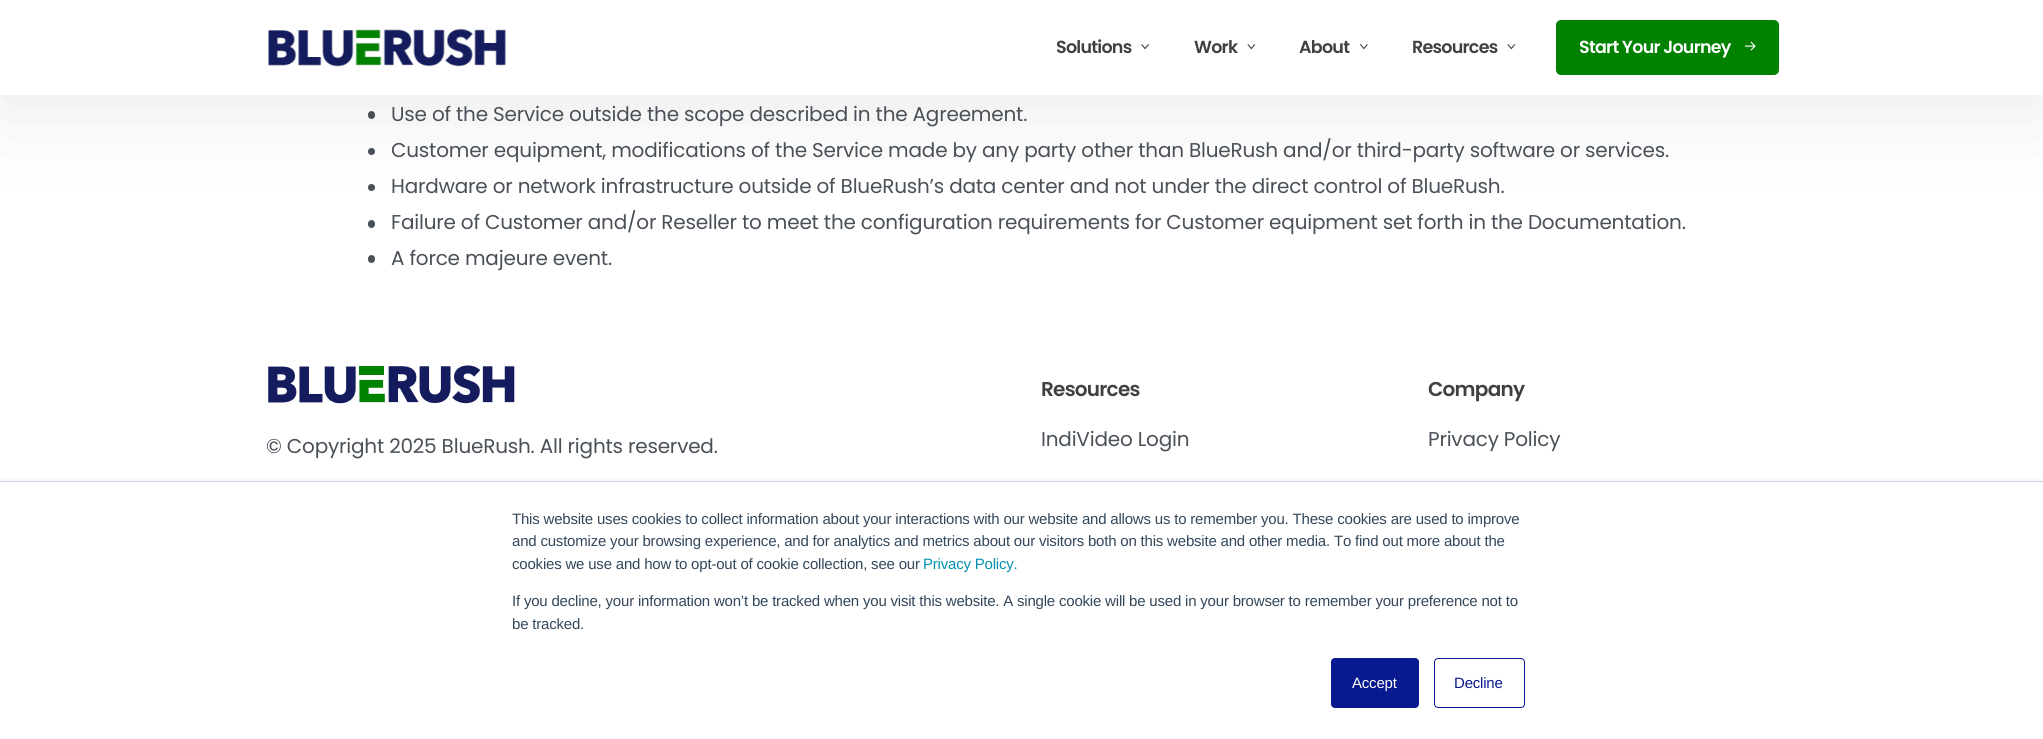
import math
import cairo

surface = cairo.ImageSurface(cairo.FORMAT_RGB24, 2043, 739)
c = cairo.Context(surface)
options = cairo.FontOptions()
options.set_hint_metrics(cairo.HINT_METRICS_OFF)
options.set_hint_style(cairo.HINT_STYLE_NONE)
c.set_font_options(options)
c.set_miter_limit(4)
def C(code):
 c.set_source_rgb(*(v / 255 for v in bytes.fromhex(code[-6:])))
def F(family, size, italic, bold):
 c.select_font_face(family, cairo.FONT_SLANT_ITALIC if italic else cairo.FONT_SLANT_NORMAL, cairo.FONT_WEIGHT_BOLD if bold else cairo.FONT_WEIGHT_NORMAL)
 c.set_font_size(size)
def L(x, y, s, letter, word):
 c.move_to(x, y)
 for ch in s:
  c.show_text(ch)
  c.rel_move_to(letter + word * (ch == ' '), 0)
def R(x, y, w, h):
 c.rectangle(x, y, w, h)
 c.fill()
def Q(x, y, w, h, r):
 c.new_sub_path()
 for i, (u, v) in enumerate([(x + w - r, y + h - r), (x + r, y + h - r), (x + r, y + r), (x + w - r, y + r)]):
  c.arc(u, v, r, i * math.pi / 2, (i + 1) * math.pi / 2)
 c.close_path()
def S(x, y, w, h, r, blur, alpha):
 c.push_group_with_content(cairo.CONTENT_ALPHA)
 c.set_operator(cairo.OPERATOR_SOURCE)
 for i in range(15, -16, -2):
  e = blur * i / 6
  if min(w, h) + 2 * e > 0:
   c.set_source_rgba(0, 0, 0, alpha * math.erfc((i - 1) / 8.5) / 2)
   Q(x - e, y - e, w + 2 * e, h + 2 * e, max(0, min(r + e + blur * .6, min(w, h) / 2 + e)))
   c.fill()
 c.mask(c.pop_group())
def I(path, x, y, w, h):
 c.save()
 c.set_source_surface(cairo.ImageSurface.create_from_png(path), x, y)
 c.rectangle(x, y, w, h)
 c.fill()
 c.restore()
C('ffffff')
c.paint()
C('495057')
Q(368,111,7,8,3.5)
c.fill()
c.arc(371.5,151.5,3.5,0,2 * math.pi)
c.fill()
c.arc(371.5,187.5,3.5,0,2 * math.pi)
c.fill()
Q(368,220,7,8,3.5)
c.fill()
C('000000')
S(0,6,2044,95,0,50,.1)
C('ffffff')
R(0,0,2043,95)
I('1.png',267,28,239,39)
F('Poppins SemiBold',17.5,0,0)
C('404040')
L(1056,53,'Solutions',-.75,0)
I('2.png',1141,44,8,6)
L(1194,53,'Work',-.75,0)
I('3.png',1247,44,9,6)
L(1299,53,'About',-.75,0)
I('4.png',1360,44,8,6)
L(1412,53,'Resources',-.75,0)
I('3.png',1507,44,9,6)
C('008200')
Q(1556,20,223,55,5)
c.fill()
C('ffffff')
L(1579,53,'Start Your Journey',-.75,0)
I('5.png',1744,41,12,10)
F('Poppins',20,0,0)
C('495057')
L(391,121,'Use of the Service outside the scope described in the Agreement.',-.2,0)
L(391,157,'Customer equipment, modifications of the Service made by any party other than BlueRush and/or third-party software or services.',-.2,0)
L(391,193,'Hardware or network infrastructure outside of BlueRush’s data center and not under the direct control of BlueRush.',-.2,0)
L(391,229,'Failure of Customer and/or Reseller to meet the configuration requirements for Customer equipment set forth in the Documentation.',-.2,0)
Q(368,255,7,8,3.5)
c.fill()
L(391,265,'A force majeure event.',-.2,0)
I('6.png',268,365,247,39)
L(266,453,'© Copyright 2025 BlueRush. All rights reserved.',-.2,0)
F('Poppins SemiBold',20,0,0)
C('404040')
L(1041,396,'Resources',-.75,0)
F('Poppins',20,0,0)
C('495057')
L(1041,446,'IndiVideo Login',-.2,0)
F('Poppins SemiBold',20,0,0)
C('404040')
L(1428,396,'Company',-.75,0)
F('Poppins',20,0,0)
C('495057')
L(1428,446,'Privacy Policy',-.2,0)
C('eaf0f6')
S(0,480,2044,259,0,2,1)
C('ffffff')
R(0,482,2043,257)
C('cbd6e2')
R(0,481,2043,1)
F('Liberation Sans',15,0,0)
C('33475b')
L(512,524,'This website uses cookies to collect information about your interactions with our website and allows us to remember you. These cookies are used to improve',-.2,0)
L(512,546,'and customize your browsing experience, and for analytics and metrics about our visitors both on this website and other media. To find out more about the',-.2,0)
L(512,569,'cookies we use and how to opt-out of cookie collection, see our',-.2,0)
C('0091ae')
L(923,569,'Privacy Policy.',-.2,0)
C('33475b')
L(512,606,'If you decline, your information won’t be tracked when you visit this website. A single cookie will be used in your browser to remember your preference not to',-.2,0)
L(512,629,'be tracked.',-.2,0)
C('09198f')
Q(1331.5,658.5,87,49,3.5)
c.fill_preserve()
c.set_line_width(1)
c.stroke()
C('ffffff')
L(1352,688,'Accept',-.2,0)
Q(1434.5,658.5,90,49,3.5)
C('09198f')
c.stroke()
L(1454,688,'Decline',-.2,0)
surface.write_to_png('o.png')
